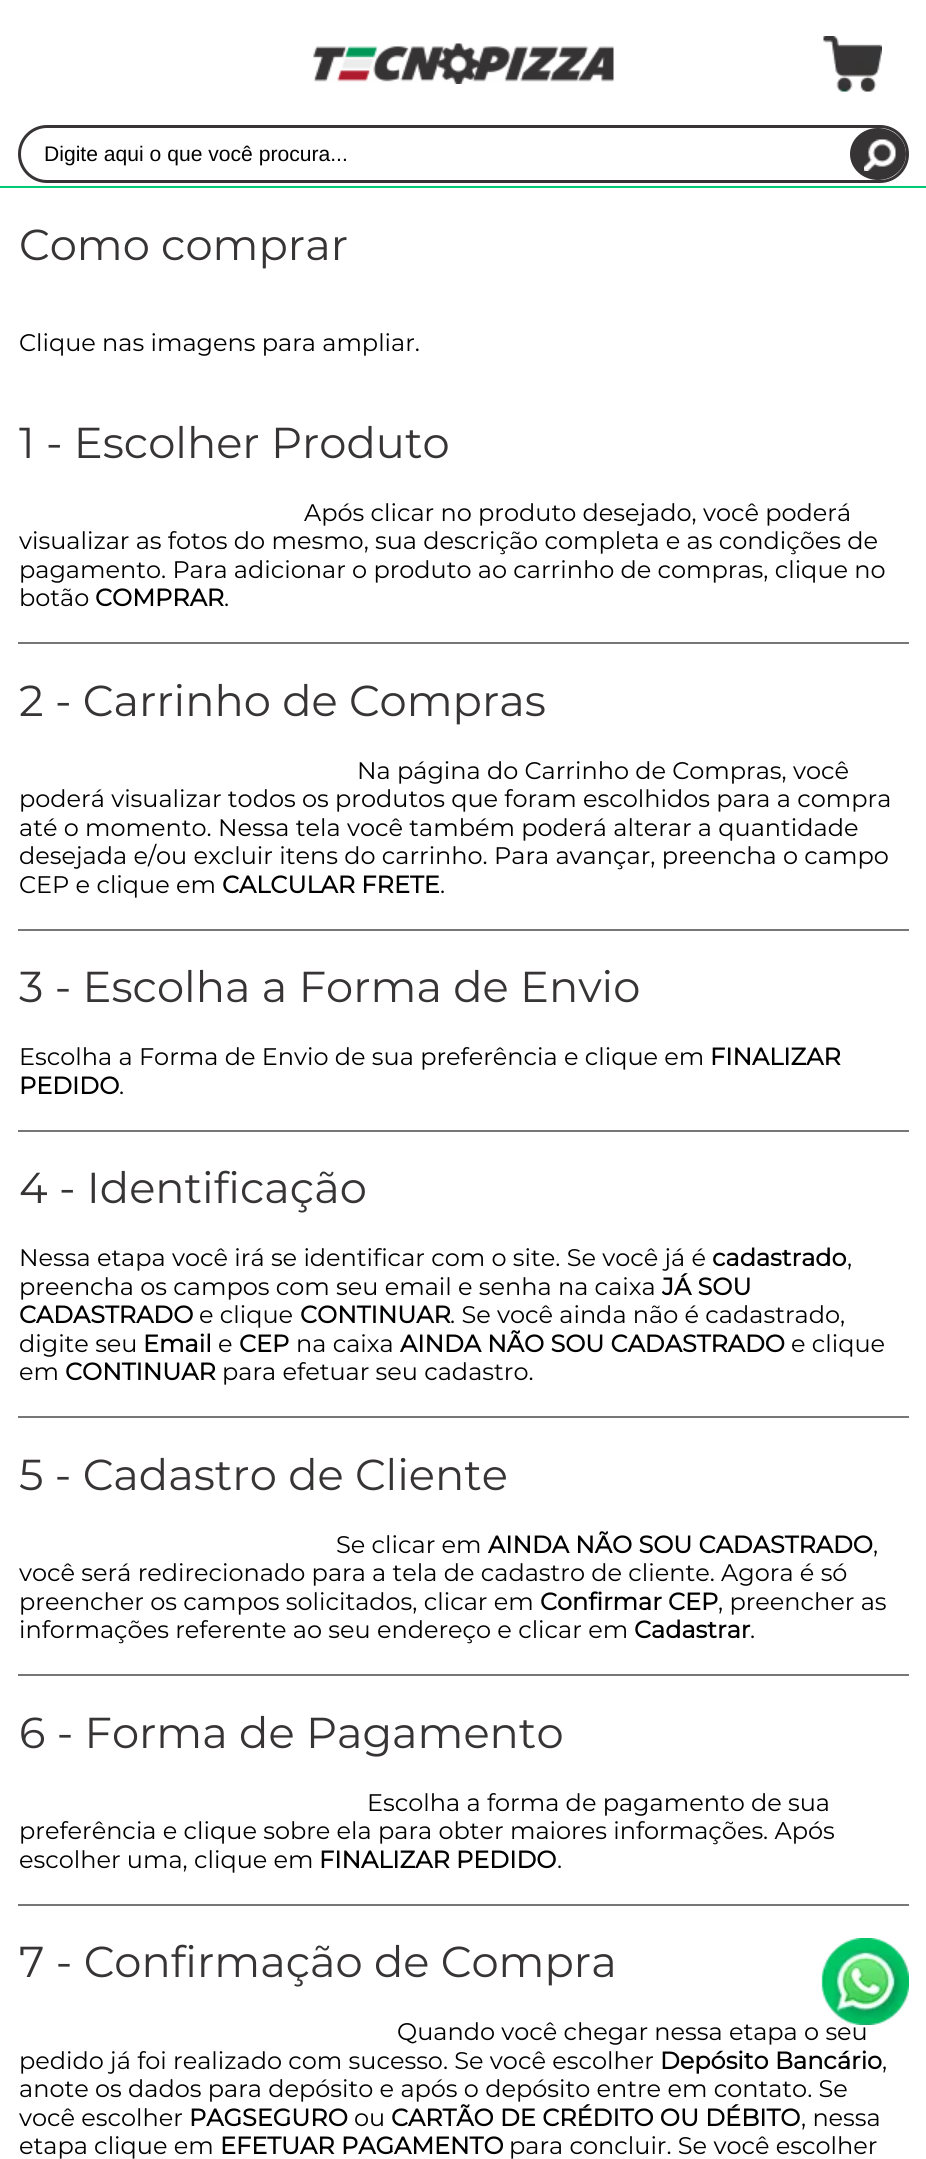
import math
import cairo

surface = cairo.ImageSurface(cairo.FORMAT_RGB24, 926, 2159)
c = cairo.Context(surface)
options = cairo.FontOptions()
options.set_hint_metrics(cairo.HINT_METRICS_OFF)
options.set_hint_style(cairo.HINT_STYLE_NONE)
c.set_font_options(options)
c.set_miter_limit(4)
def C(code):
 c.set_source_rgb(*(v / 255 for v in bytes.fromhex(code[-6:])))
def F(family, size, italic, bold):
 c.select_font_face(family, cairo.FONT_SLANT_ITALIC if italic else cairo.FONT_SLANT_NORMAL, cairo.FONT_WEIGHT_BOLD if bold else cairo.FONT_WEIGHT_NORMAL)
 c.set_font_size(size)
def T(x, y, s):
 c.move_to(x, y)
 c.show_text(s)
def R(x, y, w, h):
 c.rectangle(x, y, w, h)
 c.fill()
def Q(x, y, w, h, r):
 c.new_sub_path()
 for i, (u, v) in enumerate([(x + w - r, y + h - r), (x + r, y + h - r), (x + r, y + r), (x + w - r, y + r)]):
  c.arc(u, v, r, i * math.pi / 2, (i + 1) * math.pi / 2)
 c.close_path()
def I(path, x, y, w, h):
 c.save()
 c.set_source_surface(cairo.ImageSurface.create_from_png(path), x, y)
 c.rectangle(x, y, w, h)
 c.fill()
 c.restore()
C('ffffff')
c.paint()
I('1.png',313,43,301,41)
I('2.png',823,36,59,56)
Q(19.5,126.5,888,55,27.5)
C('373435')
c.set_line_width(3)
c.stroke()
F('Liberation Sans',21.1,0,0)
C('000000')
T(44,161,'Digite aqui o que você procura...')
C('373435')
c.new_path()
c.move_to(878,128)
c.curve_to(893.5,128,906,139.5,906,154)
c.curve_to(906,168.5,893.5,180,878,180)
c.curve_to(862.5,180,850,168.5,850,154)
c.curve_to(850,139.5,862.5,128,878,128)
c.close_path()
c.fill()
I('3.png',864,139,32,32)
C('00ca74')
R(0,186,926,2)
F('Montserrat Thin',43.25,0,0)
C('373435')
T(19,260,'Como comprar')
F('Montserrat Thin',24,0,0)
C('000000')
T(19,351,'Clique nas imagens para ampliar.')
F('Montserrat Thin',43.25,0,0)
C('373435')
T(19,458,'1 - Escolher Produto')
F('Montserrat Thin',24,0,0)
C('000000')
T(304,521,'Após clicar no produto desejado, você poderá')
T(19,549,'visualizar as fotos do mesmo, sua descrição completa e as condições de')
T(19,578,'pagamento. Para adicionar o produto ao carrinho de compras, clique no')
T(19,606,'botão')
F('Montserrat',24,0,1)
T(95,606,'COMPRAR')
F('Montserrat Thin',24,0,0)
T(224,606,'.')
C('777777')
R(18,642,891,2)
F('Montserrat Thin',43.25,0,0)
C('373435')
T(19,716,'2 - Carrinho de Compras')
F('Montserrat Thin',24,0,0)
C('000000')
T(357,779,'Na página do Carrinho de Compras, você')
T(19,807,'poderá visualizar todos os produtos que foram escolhidos para a compra')
T(19,836,'até o momento. Nessa tela você também poderá alterar a quantidade')
T(19,864,'desejada e/ou excluir itens do carrinho. Para avançar, preencha o campo')
T(19,893,'CEP e clique em')
F('Montserrat',24,0,1)
T(222,893,'CALCULAR FRETE')
F('Montserrat Thin',24,0,0)
T(440,893,'.')
C('777777')
R(18,929,891,2)
F('Montserrat Thin',43.25,0,0)
C('373435')
T(19,1002,'3 - Escolha a Forma de Envio')
F('Montserrat Thin',24,0,0)
C('000000')
T(19,1065,'Escolha a Forma de Envio de sua preferência e clique em')
F('Montserrat',24,0,1)
T(710,1065,'FINALIZAR')
T(19,1094,'PEDIDO')
F('Montserrat Thin',24,0,0)
T(119,1094,'.')
C('777777')
R(18,1130,891,2)
F('Montserrat Thin',43.25,0,0)
C('373435')
T(19,1203,'4 - Identificação')
F('Montserrat Thin',24,0,0)
C('000000')
T(19,1266,'Nessa etapa você irá se identificar com o site. Se você já é')
F('Montserrat',24,0,1)
T(712,1266,'cadastrado')
F('Montserrat Thin',24,0,0)
T(847,1266,',')
T(19,1295,'preencha os campos com seu email e senha na caixa')
F('Montserrat',24,0,1)
T(662,1295,'JÁ SOU')
T(19,1323,'CADASTRADO')
F('Montserrat Thin',24,0,0)
T(199,1323,'e clique')
F('Montserrat',24,0,1)
T(300,1323,'CONTINUAR')
F('Montserrat Thin',24,0,0)
T(450,1323,'. Se você ainda não é cadastrado,')
T(19,1352,'digite seu')
F('Montserrat',24,0,1)
T(143,1352,'Email')
F('Montserrat Thin',24,0,0)
T(218,1352,'e')
F('Montserrat',24,0,1)
T(239,1352,'CEP')
F('Montserrat Thin',24,0,0)
T(296,1352,'na caixa')
F('Montserrat',24,0,1)
T(400,1352,'AINDA NÃO SOU CADASTRADO')
F('Montserrat Thin',24,0,0)
T(791,1352,'e clique')
T(19,1380,'em')
F('Montserrat',24,0,1)
T(65,1380,'CONTINUAR')
F('Montserrat Thin',24,0,0)
T(222,1380,'para efetuar seu cadastro.')
C('777777')
R(18,1416,891,2)
F('Montserrat Thin',43.25,0,0)
C('373435')
T(19,1490,'5 - Cadastro de Cliente')
F('Montserrat Thin',24,0,0)
C('000000')
T(336,1553,'Se clicar em')
F('Montserrat',24,0,1)
T(488,1553,'AINDA NÃO SOU CADASTRADO')
F('Montserrat Thin',24,0,0)
T(873,1553,',')
T(19,1581,'você será redirecionado para a tela de cadastro de cliente. Agora é só')
T(19,1610,'preencher os campos solicitados, clicar em')
F('Montserrat',24,0,1)
T(540,1610,'Confirmar CEP')
F('Montserrat Thin',24,0,0)
T(718,1610,', preencher as')
T(19,1638,'informações referente ao seu endereço e clicar em')
F('Montserrat',24,0,1)
T(634,1638,'Cadastrar')
F('Montserrat Thin',24,0,0)
T(750,1638,'.')
C('777777')
R(18,1674,891,2)
F('Montserrat Thin',43.25,0,0)
C('373435')
T(19,1748,'6 - Forma de Pagamento')
F('Montserrat Thin',24,0,0)
C('000000')
T(367,1811,'Escolha a forma de pagamento de sua')
T(19,1839,'preferência e clique sobre ela para obter maiores informações. Após')
T(19,1868,'escolher uma, clique em')
F('Montserrat',24,0,1)
T(319,1868,'FINALIZAR PEDIDO')
F('Montserrat Thin',24,0,0)
T(557,1868,'.')
C('777777')
R(18,1904,891,2)
F('Montserrat Thin',43.25,0,0)
C('373435')
T(19,1977,'7 - Confirmação de Compra')
F('Montserrat Thin',24,0,0)
C('000000')
T(397,2040,'Quando você chegar nessa etapa o seu')
T(19,2069,'pedido já foi realizado com sucesso. Se você escolher')
F('Montserrat',24,0,1)
T(660,2069,'Depósito Bancário')
F('Montserrat Thin',24,0,0)
T(882,2069,',')
T(19,2097,'anote os dados para depósito e após o depósito entre em contato. Se')
T(19,2126,'você escolher')
F('Montserrat',24,0,1)
T(189,2126,'PAGSEGURO')
F('Montserrat Thin',24,0,0)
T(354,2126,'ou')
F('Montserrat',24,0,1)
T(391,2126,'CARTÃO DE CRÉDITO OU DÉBITO')
F('Montserrat Thin',24,0,0)
T(801,2126,', nessa')
T(19,2154,'etapa clique em')
F('Montserrat',24,0,1)
T(220,2154,'EFETUAR PAGAMENTO')
F('Montserrat Thin',24,0,0)
T(509,2154,'para concluir. Se você escolher')
I('4.png',821,1938,88,87)
surface.write_to_png('o.png')
